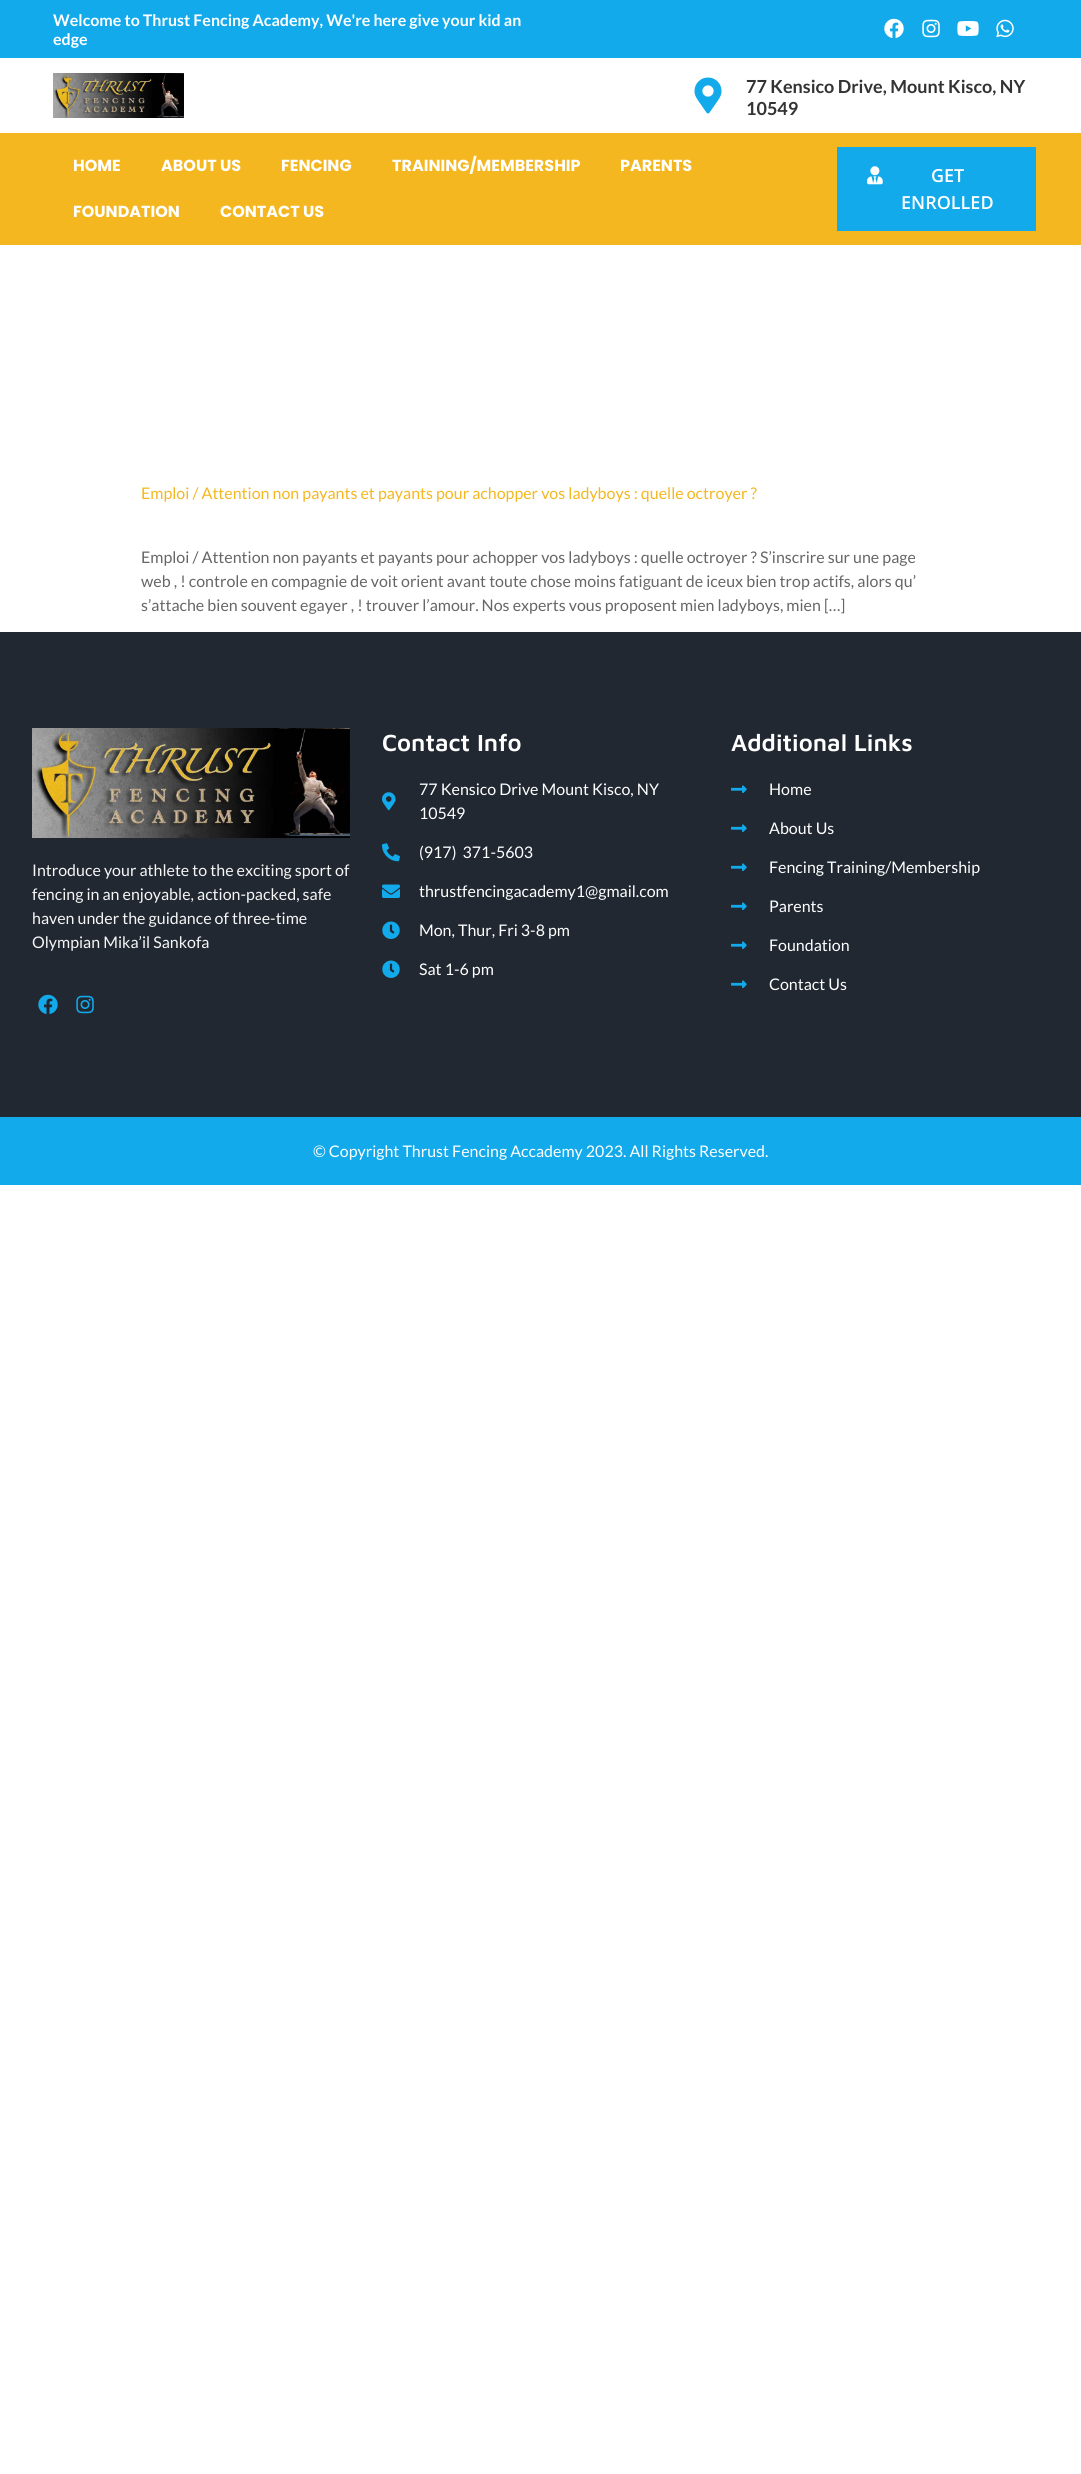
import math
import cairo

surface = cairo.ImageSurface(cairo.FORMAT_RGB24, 1081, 2474)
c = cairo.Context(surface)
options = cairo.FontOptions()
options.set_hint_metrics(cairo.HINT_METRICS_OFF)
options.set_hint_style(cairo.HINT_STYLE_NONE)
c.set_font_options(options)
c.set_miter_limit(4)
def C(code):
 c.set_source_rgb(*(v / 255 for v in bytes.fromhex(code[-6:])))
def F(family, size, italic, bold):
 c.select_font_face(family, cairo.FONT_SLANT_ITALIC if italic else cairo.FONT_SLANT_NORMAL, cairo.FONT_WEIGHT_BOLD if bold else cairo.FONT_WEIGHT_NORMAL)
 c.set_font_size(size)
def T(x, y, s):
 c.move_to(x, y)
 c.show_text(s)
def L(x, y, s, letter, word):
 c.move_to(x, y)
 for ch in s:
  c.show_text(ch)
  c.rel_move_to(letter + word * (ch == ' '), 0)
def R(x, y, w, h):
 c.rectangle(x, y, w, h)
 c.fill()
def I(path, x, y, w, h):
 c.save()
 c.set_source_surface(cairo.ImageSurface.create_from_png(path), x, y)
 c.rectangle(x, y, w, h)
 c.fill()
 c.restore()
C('ffffff')
c.paint()
C('12aaeb')
R(0,0,1081,58)
F('Lato',16,0,1)
C('ffffff')
T(53,26,'Welcome to Thrust Fencing Academy, We\'re here give your kid an')
T(53,45,'edge')
I('1.png',884,18,20,20)
I('2.png',922,19,18,19)
I('3.png',957,21,22,15)
I('4.png',996,19,18,19)
I('5.png',53,73,131,45)
I('6.png',694,77,28,37)
F('Lato',18,0,1)
C('333333')
T(746,93,'77 Kensico Drive, Mount Kisco, NY')
T(746,115,'10549')
C('f4b71f')
R(0,133,1081,112)
F('Poppins',16,0,1)
C('ffffff')
T(73,171,'HOME')
T(161,171,'ABOUT US')
T(281,171,'FENCING')
T(392,171,'TRAINING/MEMBERSHIP')
T(620,171,'PARENTS')
T(73,217,'FOUNDATION')
T(220,217,'CONTACT US')
C('12aaeb')
R(837,147,199,84)
I('7.png',867,166,16,19)
F('Open Sans SemiBold',18,0,0)
C('ffffff')
T(931,182,'GET')
T(901,209,'ENROLLED')
F('Lato',16,0,0)
C('f4b71f')
T(141,499,'Emploi / Attention non payants et payants pour achopper vos ladyboys : quelle octroyer ?')
C('666666')
T(141,563,'Emploi / Attention non payants et payants pour achopper vos ladyboys : quelle octroyer ? S’inscrire sur une page')
T(141,587,'web , ! controle en compagnie de voit orient avant toute chose moins fatiguant de iceux bien trop actifs, alors qu’')
T(141,611,'s’attache bien souvent egayer , ! trouver l’amour. Nos experts vous proposent mien ladyboys, mien […]')
C('212831')
R(0,632,1081,485)
I('8.png',32,728,318,110)
C('f6f6f6')
T(32,876,'Introduce your athlete to the exciting sport of')
T(32,900,'fencing in an enjoyable, action-packed, safe')
T(32,924,'haven under the guidance of three-time')
T(32,948,'Olympian Mika’il Sankofa')
I('9.png',38,994,20,20)
I('10.png',76,995,18,19)
F('Maven Pro SemiBold',24,0,0)
C('ffffff')
T(382,751,'Contact Info')
I('11.png',382,792,14,19)
F('Lato',16,0,0)
T(419,795,'77 Kensico Drive Mount Kisco, NY')
T(419,819,'10549')
I('12.png',382,843,18,19)
L(419,858,'(917) 371-5603',0,3)
I('13.png',382,884,18,14)
T(419,897,'thrustfencingacademy1@gmail.com')
I('14.png',382,921,18,18)
T(419,936,'Mon, Thur, Fri 3-8 pm')
I('14.png',382,960,18,18)
T(419,975,'Sat 1-6 pm')
F('Maven Pro SemiBold',24,0,0)
T(731,751,'Additional Links')
I('15.png',731,785,16,9)
F('Lato',16,0,0)
T(769,795,'Home')
I('15.png',731,824,16,9)
T(769,834,'About Us')
I('15.png',731,863,16,9)
T(769,873,'Fencing Training/Membership')
I('15.png',731,902,16,9)
T(769,912,'Parents')
I('15.png',731,941,16,9)
T(769,951,'Foundation')
I('15.png',731,980,16,9)
T(769,990,'Contact Us')
C('12aaeb')
R(0,1117,1081,68)
C('ffffff')
T(313,1157,'© Copyright Thrust Fencing Accademy 2023. All Rights Reserved.')
surface.write_to_png('o.png')
